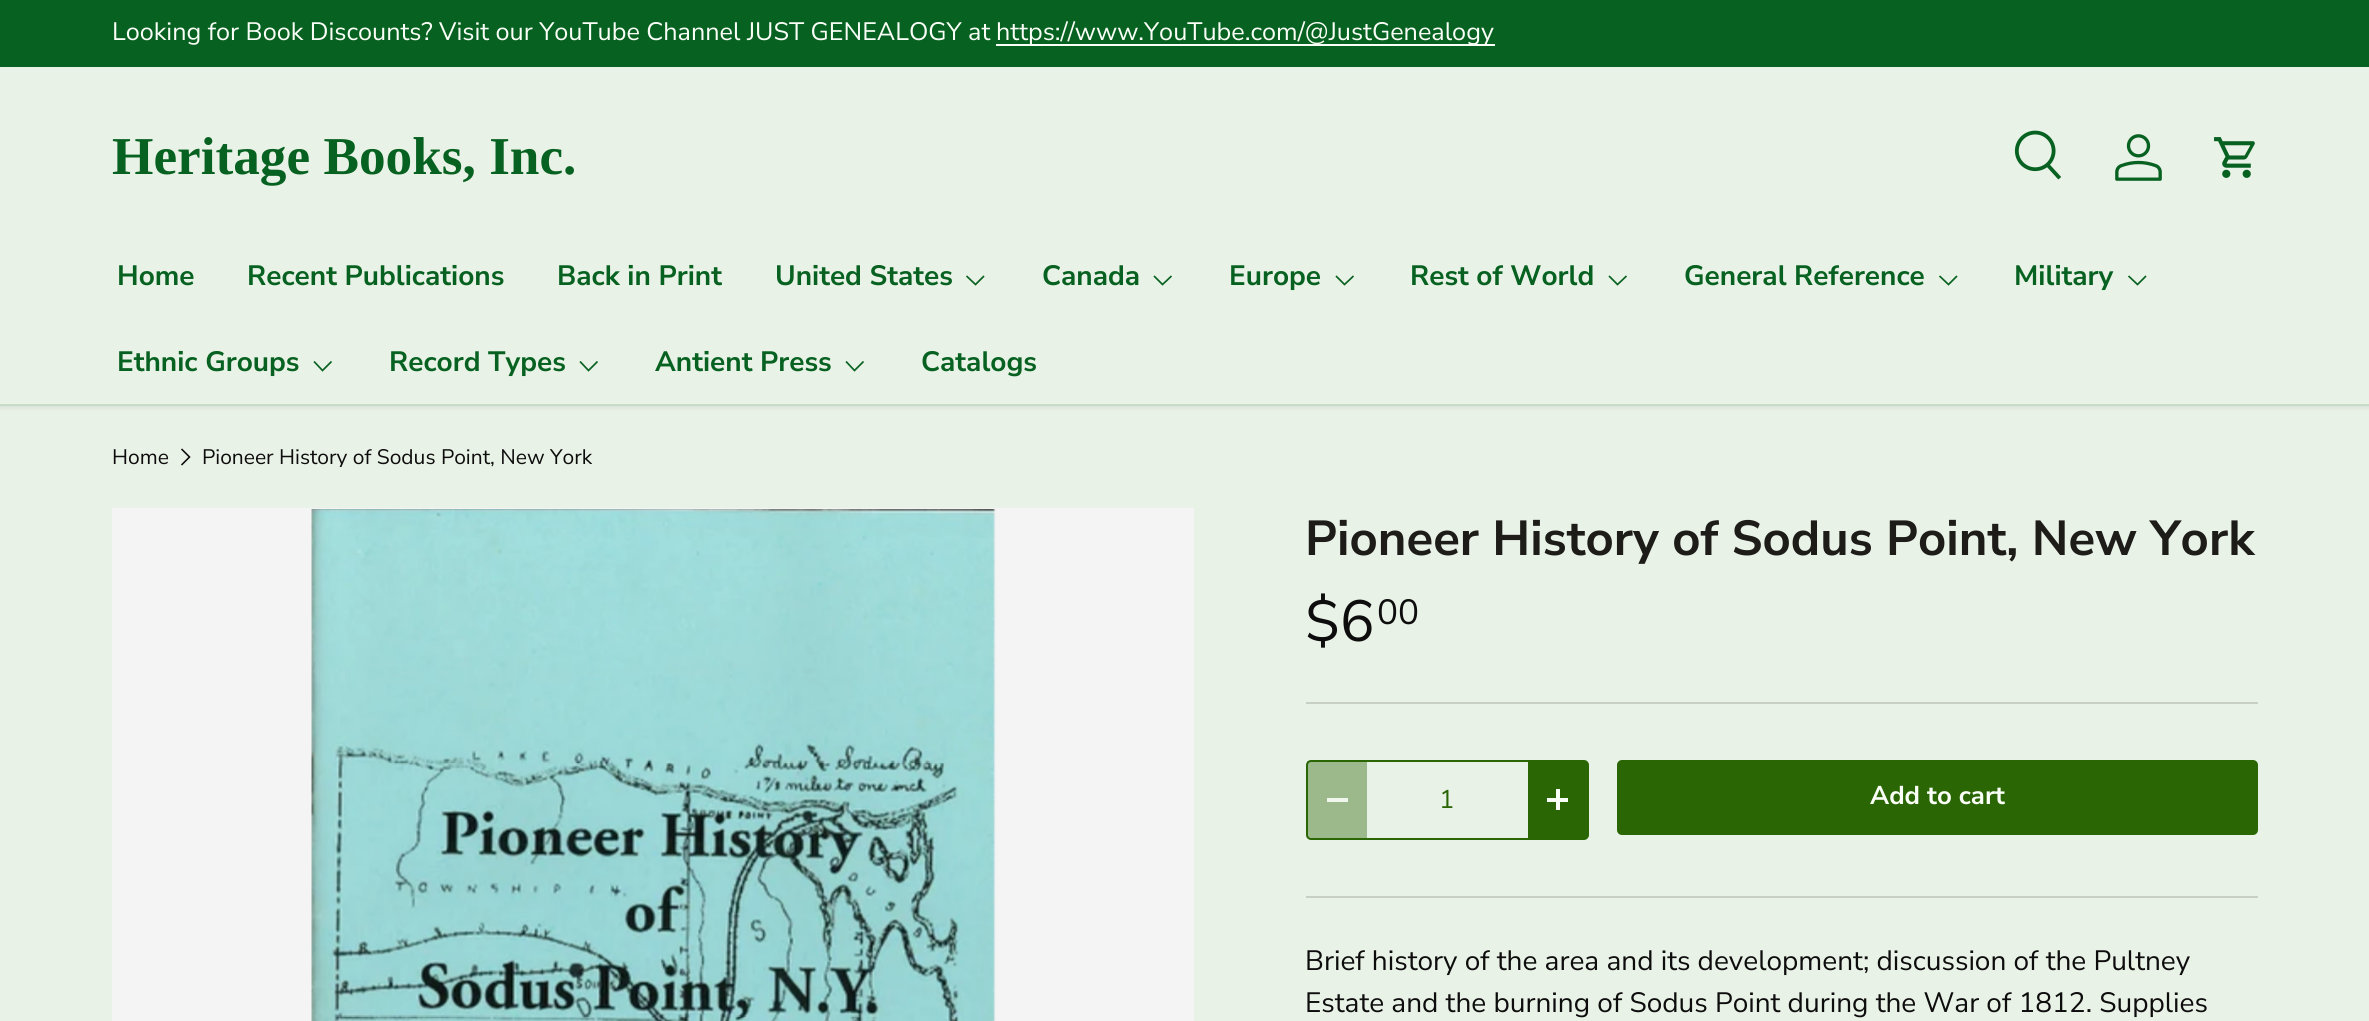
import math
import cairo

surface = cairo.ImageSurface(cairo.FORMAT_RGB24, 2369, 1021)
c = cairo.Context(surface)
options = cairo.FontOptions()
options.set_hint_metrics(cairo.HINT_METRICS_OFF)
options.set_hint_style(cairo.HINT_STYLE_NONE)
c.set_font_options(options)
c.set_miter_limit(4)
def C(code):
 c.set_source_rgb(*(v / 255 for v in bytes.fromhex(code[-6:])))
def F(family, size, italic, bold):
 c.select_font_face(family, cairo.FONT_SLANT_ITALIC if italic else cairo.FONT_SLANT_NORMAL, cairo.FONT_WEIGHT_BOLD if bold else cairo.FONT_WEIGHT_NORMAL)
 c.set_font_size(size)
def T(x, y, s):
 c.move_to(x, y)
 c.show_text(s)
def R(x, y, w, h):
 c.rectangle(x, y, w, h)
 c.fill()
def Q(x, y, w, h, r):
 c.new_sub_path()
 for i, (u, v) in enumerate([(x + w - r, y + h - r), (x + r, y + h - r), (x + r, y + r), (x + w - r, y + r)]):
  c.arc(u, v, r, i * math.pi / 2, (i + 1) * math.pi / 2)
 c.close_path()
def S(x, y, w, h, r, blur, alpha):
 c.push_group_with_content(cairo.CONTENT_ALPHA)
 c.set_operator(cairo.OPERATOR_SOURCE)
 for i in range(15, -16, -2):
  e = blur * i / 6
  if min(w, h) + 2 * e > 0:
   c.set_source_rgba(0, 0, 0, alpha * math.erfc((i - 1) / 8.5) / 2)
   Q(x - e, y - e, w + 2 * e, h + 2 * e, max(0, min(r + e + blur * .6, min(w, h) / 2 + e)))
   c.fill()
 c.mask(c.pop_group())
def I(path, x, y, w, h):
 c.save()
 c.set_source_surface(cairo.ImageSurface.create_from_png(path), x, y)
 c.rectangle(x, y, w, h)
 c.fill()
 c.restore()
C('e9f2e6')
c.paint()
c.save()
c.rectangle(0,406,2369,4)
c.clip()
C('000000')
S(-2,65,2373,343,0,2.5,.08)
c.restore()
C('076121')
R(0,0,2369,67)
F('Nunito Sans',25.2,0,0)
C('fafff7')
T(112,40,'Looking for Book Discounts? Visit our YouTube Channel JUST GENEALOGY at')
R(996,44,499,2)
T(996,40,'https://www.YouTube.com/@JustGenealogy')
F('Liberation Serif',53.25,0,1)
C('076121')
T(112,174,'Heritage Books, Inc.')
I('1.png',2014,130,48,50)
I('2.png',2115,134,47,47)
I('3.png',2214,137,41,41)
F('Nunito Sans',28,0,1)
T(117,285,'Home')
T(247,285,'Recent Publications')
T(557,285,'Back in Print')
T(775,285,'United States')
c.new_path()
c.move_to(984,276)
c.line_to(975.5,284.5)
c.line_to(966.5,276)
c.set_line_width(1.7)
c.stroke()
T(1042,285,'Canada')
c.new_path()
c.move_to(1171.5,276)
c.line_to(1162.5,284.5)
c.line_to(1154,276)
c.stroke()
T(1229,285,'Europe')
c.new_path()
c.move_to(1353.5,276)
c.line_to(1344.5,284.5)
c.line_to(1336,276)
c.stroke()
T(1410,285,'Rest of World')
c.new_path()
c.move_to(1626.5,276)
c.line_to(1617.5,284.5)
c.line_to(1609,276)
c.stroke()
T(1684,285,'General Reference')
c.new_path()
c.move_to(1957,276)
c.line_to(1948.5,284.5)
c.line_to(1939.5,276)
c.stroke()
T(2014,285,'Military')
c.new_path()
c.move_to(2146,276)
c.line_to(2137.5,284.5)
c.line_to(2128.5,276)
c.stroke()
T(117,371,'Ethnic Groups')
c.new_path()
c.move_to(331.5,361.5)
c.line_to(322.5,370.5)
c.line_to(314,361.5)
c.stroke()
T(389,371,'Record Types')
c.new_path()
c.move_to(597.5,361.5)
c.line_to(588.5,370.5)
c.line_to(580,361.5)
c.stroke()
T(655,371,'Antient Press')
c.new_path()
c.move_to(863.5,361.5)
c.line_to(854.5,370.5)
c.line_to(846,361.5)
c.stroke()
T(921,371,'Catalogs')
C('c7dcc8')
R(0,404,2369,2)
F('Nunito Sans',21,0,0)
C('0e0d0e')
T(112,464,'Home')
c.new_path()
c.move_to(181.5,449)
c.line_to(189.5,457)
c.line_to(181.5,465)
c.set_line_width(1.6)
c.stroke()
c.save()
c.rectangle(201,446,391,21)
c.clip()
T(202,464,'Pioneer History of Sodus Point, New York')
c.restore()
C('f4f4f4')
R(112,508,1082,513)
I('4.png',311,509,685,512)
F('Nunito Sans',49.1,0,1)
C('1d1c19')
T(1305,555,'Pioneer History of Sodus Point, New York')
F('Nunito Sans',58,0,0)
C('0e0d0e')
T(1305,641,'$6')
F('Nunito Sans',35,0,0)
T(1377,624,'00')
C('c8d0c6')
R(1306,702,952,2)
Q(1307,761,281,78,4)
C('2a6604')
c.set_line_width(2)
c.stroke()
c.set_source_rgba(0.165,0.4,0.016,0.4)
R(1307,761,60,77)
C('f0f7ed')
R(1327,798,21,4)
F('Nunito Sans',25.75,0,0)
C('2a6604')
T(1439,808,'1')
R(1528,762,59,76)
C('fafff7')
R(1547,798,21,4)
R(1556,789,4,21)
gradient = cairo.LinearGradient(383,569,2210,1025)
gradient.add_color_stop_rgba(.6,0.314,0.537,0.173,1)
gradient.add_color_stop_rgba(.6,0.165,0.4,0.016,1)
gradient.add_color_stop_rgba(1,0.165,0.4,0.016,1)
c.set_source(gradient)
Q(1617,760,641,75,5)
c.fill()
F('Nunito Sans',25.75,0,1)
C('fafff7')
T(1870,804,'Add to cart')
C('c8d0c6')
R(1306,896,952,2)
F('Nunito Sans',28,0,0)
C('0e0d0e')
T(1305,970,'Brief history of the area and its development; discussion of the Pultney')
T(1305,1012,'Estate and the burning of Sodus Point during the War of 1812. Supplies')
surface.write_to_png('o.png')
